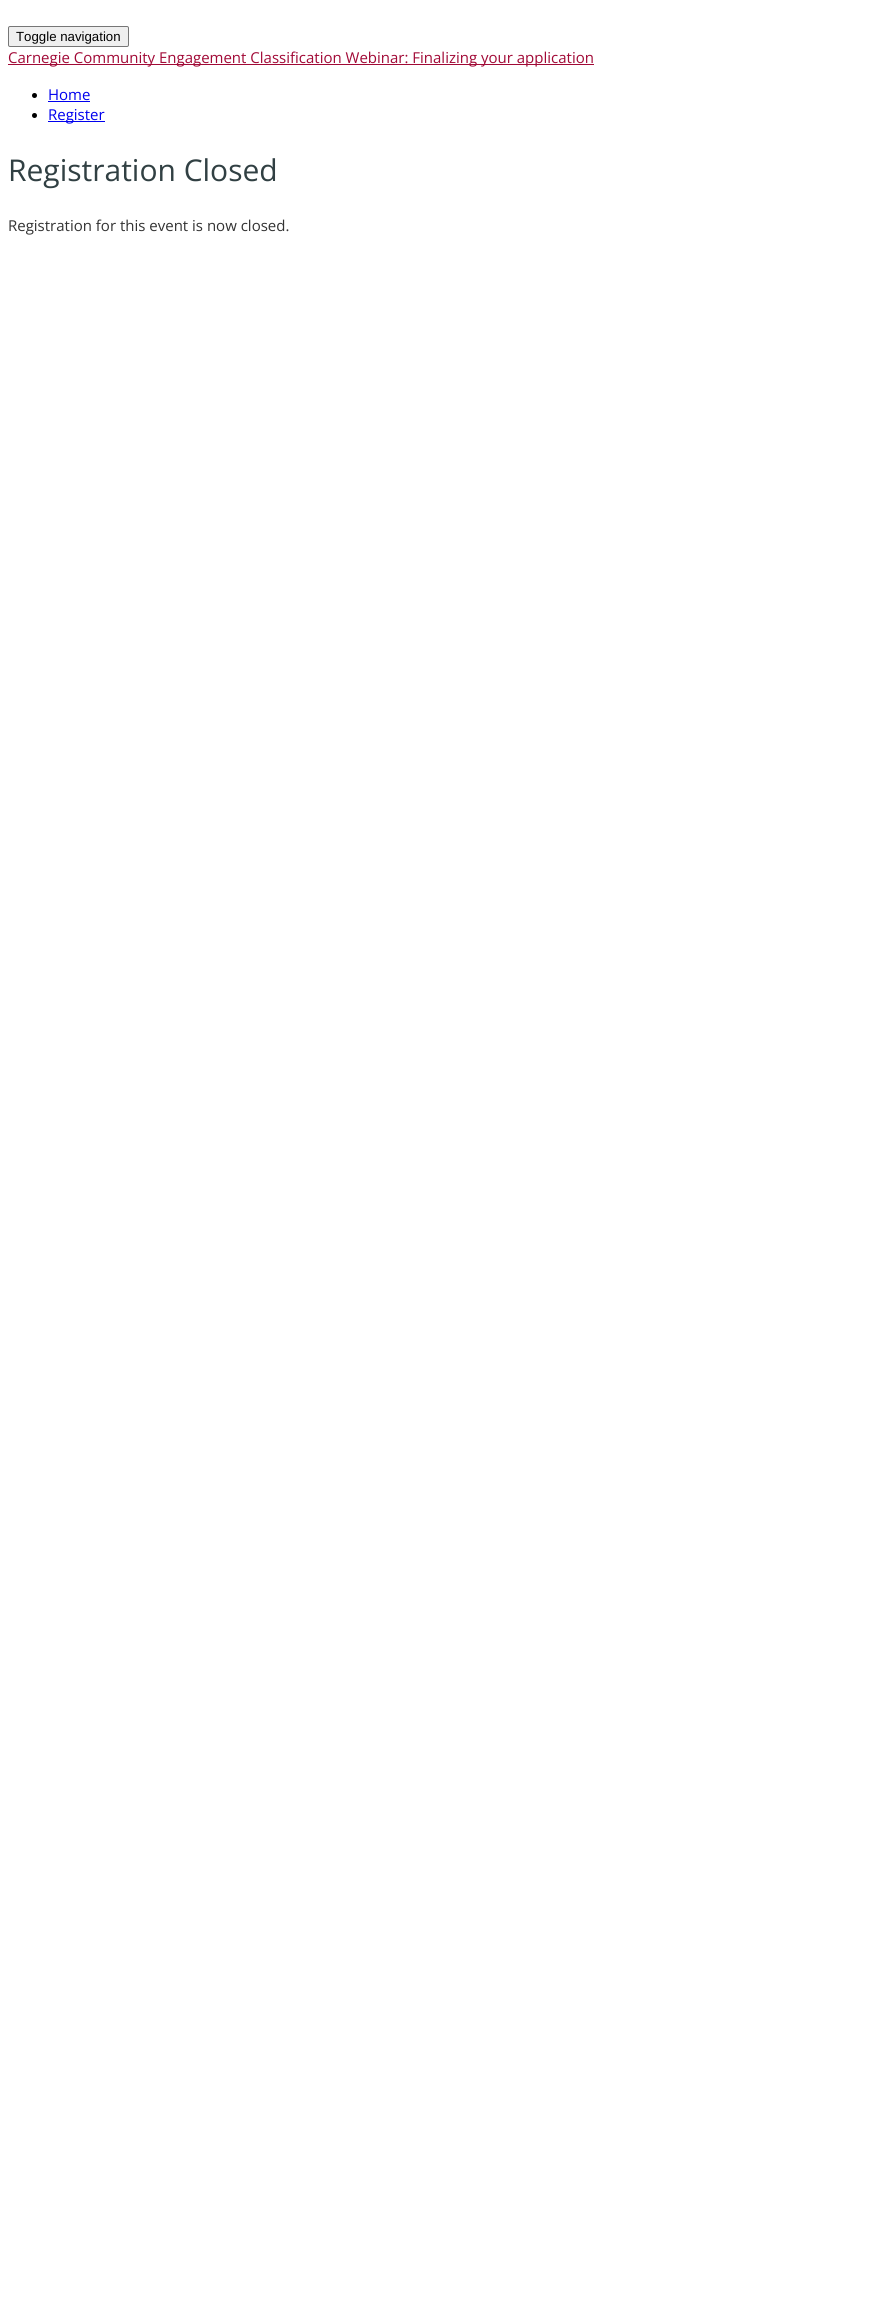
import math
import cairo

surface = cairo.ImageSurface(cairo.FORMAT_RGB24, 892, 2313)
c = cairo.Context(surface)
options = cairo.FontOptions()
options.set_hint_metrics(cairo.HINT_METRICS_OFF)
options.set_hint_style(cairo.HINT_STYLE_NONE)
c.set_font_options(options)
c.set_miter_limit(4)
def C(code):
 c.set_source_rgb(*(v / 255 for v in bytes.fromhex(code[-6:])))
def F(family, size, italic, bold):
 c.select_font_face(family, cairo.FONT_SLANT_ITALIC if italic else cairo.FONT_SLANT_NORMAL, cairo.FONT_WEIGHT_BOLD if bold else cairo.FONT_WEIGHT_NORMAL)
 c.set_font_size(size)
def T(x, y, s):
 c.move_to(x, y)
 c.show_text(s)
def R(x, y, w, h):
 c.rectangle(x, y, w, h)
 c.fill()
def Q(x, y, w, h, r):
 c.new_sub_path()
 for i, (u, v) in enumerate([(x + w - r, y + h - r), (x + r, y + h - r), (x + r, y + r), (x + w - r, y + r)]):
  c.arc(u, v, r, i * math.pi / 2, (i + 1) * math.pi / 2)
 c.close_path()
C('ffffff')
c.paint()
C('efefef')
Q(8.5,26.5,120,20,1.5)
c.fill_preserve()
C('767676')
c.set_line_width(1)
c.stroke()
F('Liberation Sans',13.25,0,0)
C('000000')
T(16,41,'Toggle navigation')
C('a10936')
R(8,64,586,1)
F('Open Sans',15,0,0)
T(8,63,'Carnegie Community Engagement Classification Webinar: Finalizing your application')
C('000000')
c.new_path()
c.arc(34.5,95.5,2.5,0,2 * math.pi)
c.fill()
C('0000ee')
T(48,100,'Home')
R(48,101,42,1)
C('000000')
c.new_path()
c.arc(34.5,115.5,2.5,0,2 * math.pi)
c.fill()
C('0000ee')
R(48,121,57,1)
T(48,120,'Register')
F('Open Sans',30,0,0)
C('314043')
T(8,181,'Registration Closed')
F('Open Sans',15,0,0)
C('333333')
T(8,231,'Registration for this event is now closed.')
surface.write_to_png('o.png')
